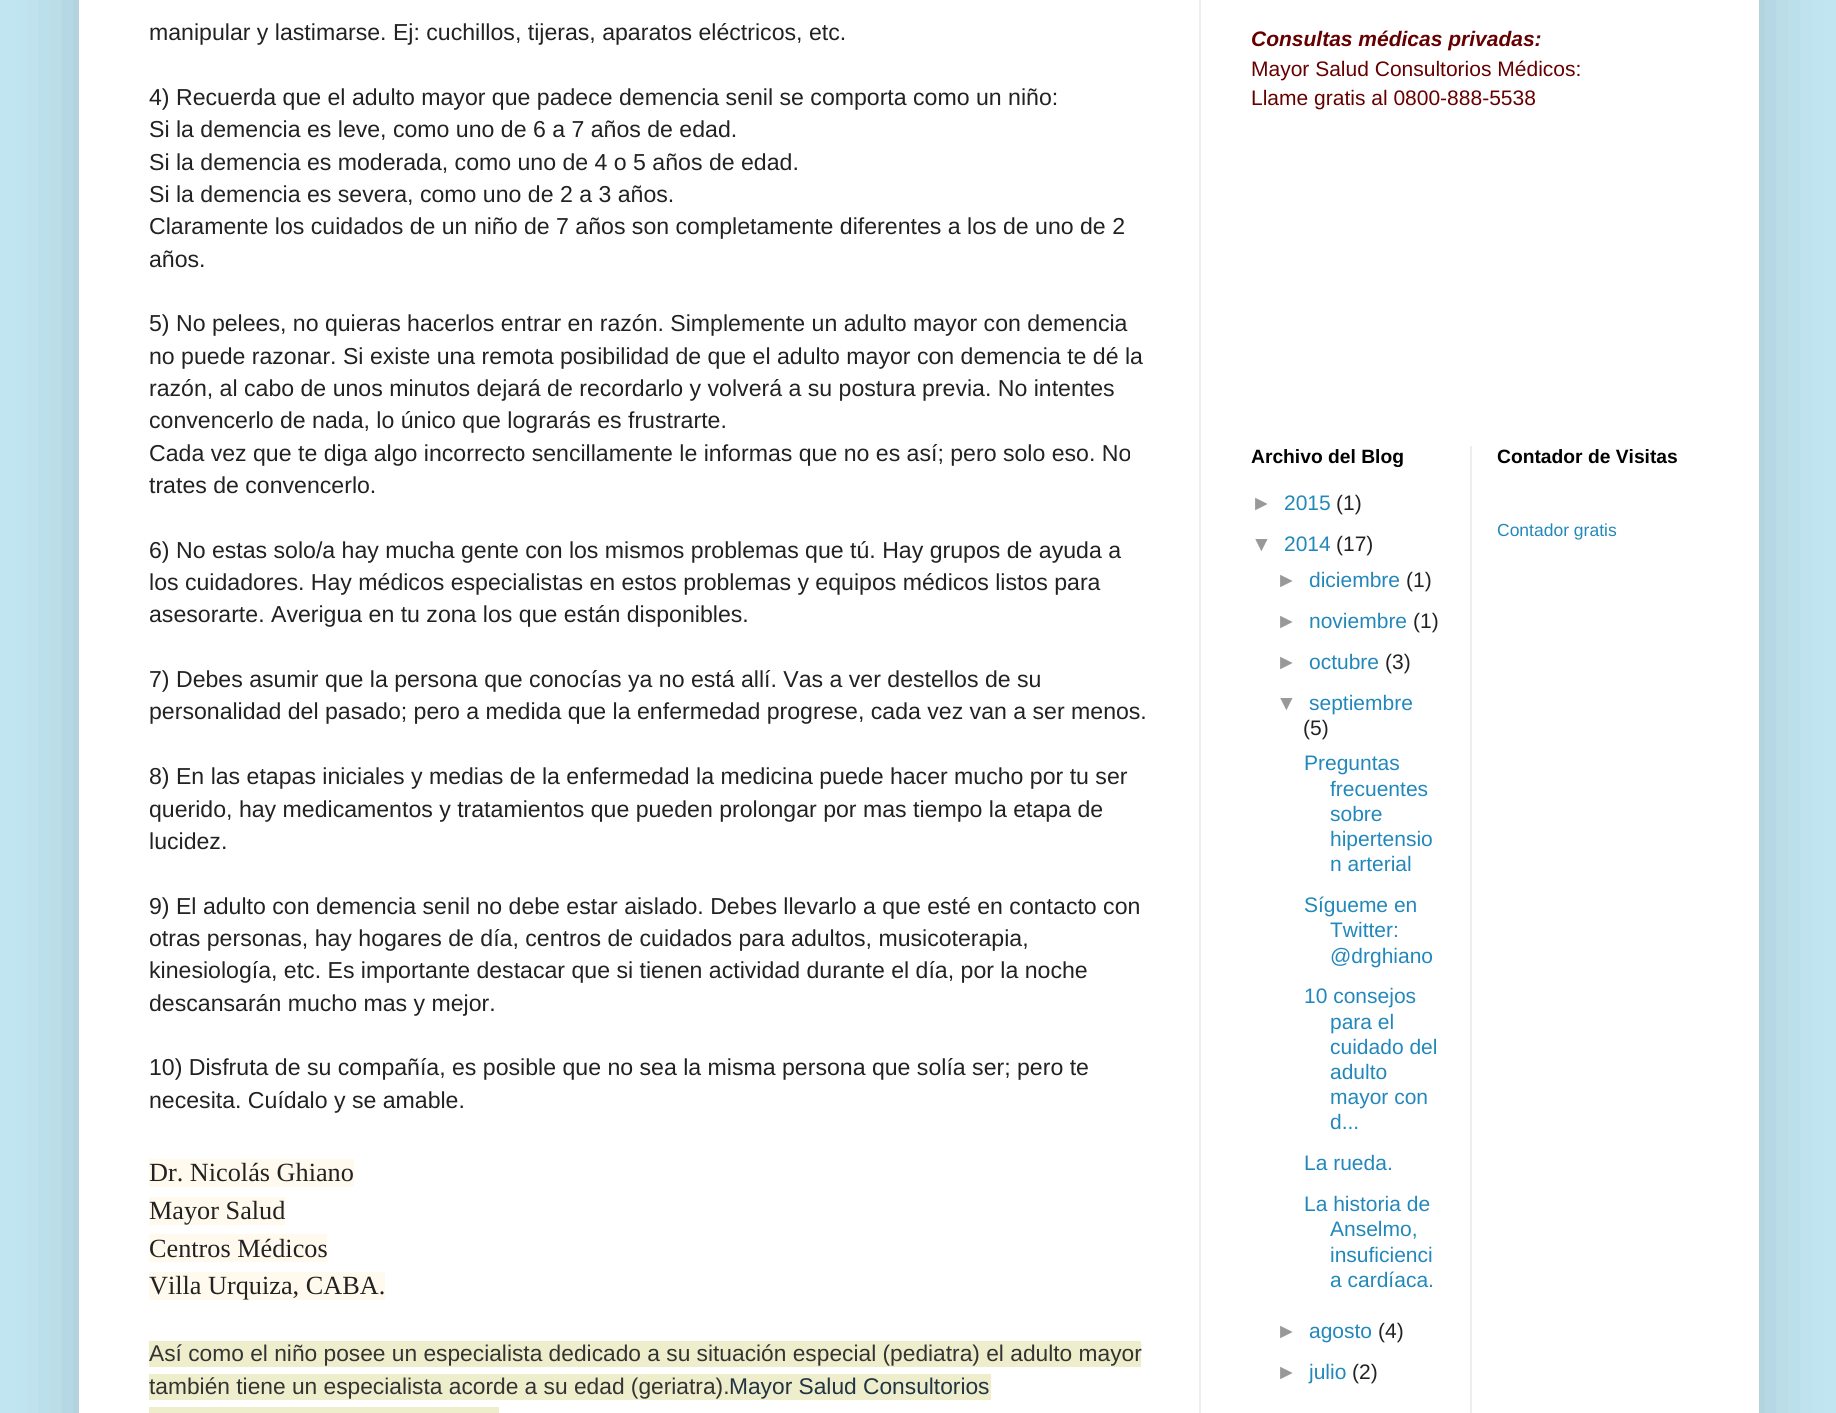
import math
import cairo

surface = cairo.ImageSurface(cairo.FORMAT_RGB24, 1836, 1413)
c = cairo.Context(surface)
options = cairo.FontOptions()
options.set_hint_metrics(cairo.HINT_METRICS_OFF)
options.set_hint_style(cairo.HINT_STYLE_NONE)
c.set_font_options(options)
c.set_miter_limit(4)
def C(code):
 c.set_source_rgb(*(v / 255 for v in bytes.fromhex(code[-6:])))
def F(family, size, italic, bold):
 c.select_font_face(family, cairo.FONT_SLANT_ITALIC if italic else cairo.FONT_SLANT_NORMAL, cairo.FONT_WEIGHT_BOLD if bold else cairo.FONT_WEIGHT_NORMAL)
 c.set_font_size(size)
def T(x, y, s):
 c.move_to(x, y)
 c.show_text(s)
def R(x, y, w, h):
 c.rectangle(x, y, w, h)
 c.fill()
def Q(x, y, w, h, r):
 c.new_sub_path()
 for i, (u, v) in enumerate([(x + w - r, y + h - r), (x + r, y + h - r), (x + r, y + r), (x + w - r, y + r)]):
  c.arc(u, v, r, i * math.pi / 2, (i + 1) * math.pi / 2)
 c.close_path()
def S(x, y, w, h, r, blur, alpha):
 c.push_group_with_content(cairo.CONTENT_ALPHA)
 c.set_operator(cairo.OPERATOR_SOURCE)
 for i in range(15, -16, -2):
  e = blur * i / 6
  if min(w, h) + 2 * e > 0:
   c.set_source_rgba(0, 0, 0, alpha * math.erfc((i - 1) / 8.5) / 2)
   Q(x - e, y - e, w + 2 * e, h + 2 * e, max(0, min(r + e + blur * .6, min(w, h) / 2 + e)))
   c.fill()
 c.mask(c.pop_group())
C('c1e5f1')
c.paint()
C('000000')
S(79,-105,1680,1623,0,35,.15)
C('ffffff')
R(79,0,1680,1413)
C('eeeeee')
R(1199,0,2,1413)
F('Liberation Sans',23.1,0,0)
C('222222')
T(149,40,'manipular y lastimarse. Ej: cuchillos, tijeras, aparatos eléctricos, etc.')
T(149,105,'4) Recuerda que el adulto mayor que padece demencia senil se comporta como un niño:')
T(149,137,'Si la demencia es leve, como uno de 6 a 7 años de edad.')
T(149,170,'Si la demencia es moderada, como uno de 4 o 5 años de edad.')
T(149,202,'Si la demencia es severa, como uno de 2 a 3 años.')
T(149,234,'Claramente los cuidados de un niño de 7 años son completamente diferentes a los de uno de 2')
T(149,267,'años.')
T(149,331,'5) No pelees, no quieras hacerlos entrar en razón. Simplemente un adulto mayor con demencia')
T(149,364,'no puede razonar. Si existe una remota posibilidad de que el adulto mayor con demencia te dé la')
T(149,396,'razón, al cabo de unos minutos dejará de recordarlo y volverá a su postura previa. No intentes')
T(149,428,'convencerlo de nada, lo único que lograrás es frustrarte.')
T(149,461,'Cada vez que te diga algo incorrecto sencillamente le informas que no es así; pero solo eso. No')
T(149,493,'trates de convencerlo.')
T(149,558,'6) No estas solo/a hay mucha gente con los mismos problemas que tú. Hay grupos de ayuda a')
T(149,590,'los cuidadores. Hay médicos especialistas en estos problemas y equipos médicos listos para')
T(149,622,'asesorarte. Averigua en tu zona los que están disponibles.')
T(149,687,'7) Debes asumir que la persona que conocías ya no está allí. Vas a ver destellos de su')
T(149,719,'personalidad del pasado; pero a medida que la enfermedad progrese, cada vez van a ser menos.')
T(149,784,'8) En las etapas iniciales y medias de la enfermedad la medicina puede hacer mucho por tu ser')
T(149,817,'querido, hay medicamentos y tratamientos que pueden prolongar por mas tiempo la etapa de')
T(149,849,'lucidez.')
T(149,914,'9) El adulto con demencia senil no debe estar aislado. Debes llevarlo a que esté en contacto con')
T(149,946,'otras personas, hay hogares de día, centros de cuidados para adultos, musicoterapia,')
T(149,978,'kinesiología, etc. Es importante destacar que si tienen actividad durante el día, por la noche')
T(149,1011,'descansarán mucho mas y mejor.')
T(149,1075,'10) Disfruta de su compañía, es posible que no sea la misma persona que solía ser; pero te')
T(149,1108,'necesita. Cuídalo y se amable.')
C('fff9ee')
R(149,1159,205,28)
F('Liberation Serif',26.25,0,0)
C('222222')
T(149,1181,'Dr. Nicolás Ghiano')
C('fff9ee')
R(149,1197,136,28)
C('222222')
T(149,1219,'Mayor Salud')
C('fff9ee')
R(149,1234,178,28)
C('222222')
T(149,1257,'Centros Médicos')
C('fff9ee')
R(149,1272,236,28)
C('222222')
T(149,1294,'Villa Urquiza, CABA.')
C('eeeecc')
R(149,1341,992,26)
F('Liberation Sans',22.75,0,0)
C('333333')
T(149,1361,'Así como el niño posee un especialista dedicado a su situación especial (pediatra) el adulto mayor')
C('eeeecc')
R(149,1374,842,26)
C('333333')
T(149,1394,'también tiene un especialista acorde a su edad (geriatra).')
C('223344')
T(729,1394,'Mayor Salud Consultorios')
C('eeeecc')
R(149,1407,350,6)
F('Liberation Sans',21,1,1)
C('660000')
T(1251,46,'Consultas médicas privadas:')
F('Liberation Sans',21,0,0)
T(1251,76,'Mayor Salud Consultorios Médicos:')
T(1251,105,'Llame gratis al 0800-888-5538')
F('Liberation Sans',19.25,0,1)
C('000000')
T(1251,463,'Archivo del Blog')
F('Liberation Sans',21,0,0)
C('999999')
T(1251,510,'►')
C('2288bb')
T(1284,510,'2015')
C('222222')
T(1336,510,'(1)')
C('999999')
T(1251,551,'▼')
C('2288bb')
T(1284,551,'2014')
C('222222')
T(1336,551,'(17)')
C('999999')
T(1276,587,'►')
C('2288bb')
T(1309,587,'diciembre')
C('222222')
T(1406,587,'(1)')
C('999999')
T(1276,628,'►')
C('2288bb')
T(1309,628,'noviembre')
C('222222')
T(1413,628,'(1)')
C('999999')
T(1276,669,'►')
C('2288bb')
T(1309,669,'octubre')
C('222222')
T(1385,669,'(3)')
C('999999')
T(1276,710,'▼')
C('2288bb')
T(1309,710,'septiembre')
C('222222')
T(1303,735,'(5)')
C('2288bb')
T(1304,770,'Preguntas')
T(1330,796,'frecuentes')
T(1330,821,'sobre')
T(1330,846,'hipertensio')
T(1330,871,'n arterial')
T(1304,912,'Sígueme en')
T(1330,937,'Twitter:')
T(1330,963,'@drghiano')
T(1304,1003,'10 consejos')
T(1330,1029,'para el')
T(1330,1054,'cuidado del')
T(1330,1079,'adulto')
T(1330,1104,'mayor con')
T(1330,1129,'d...')
T(1304,1170,'La rueda.')
T(1304,1211,'La historia de')
T(1330,1236,'Anselmo,')
T(1330,1262,'insuficienci')
T(1330,1287,'a cardíaca.')
C('999999')
T(1276,1338,'►')
C('2288bb')
T(1309,1338,'agosto')
C('222222')
T(1378,1338,'(4)')
C('999999')
T(1276,1379,'►')
C('2288bb')
T(1309,1379,'julio')
C('222222')
T(1352,1379,'(2)')
C('eeeeee')
R(1470,446,2,967)
F('Liberation Sans',19.25,0,1)
C('000000')
T(1497,463,'Contador de Visitas')
F('Liberation Sans',17.5,0,0)
C('2288bb')
T(1497,536,'Contador gratis')
surface.write_to_png('o.png')
